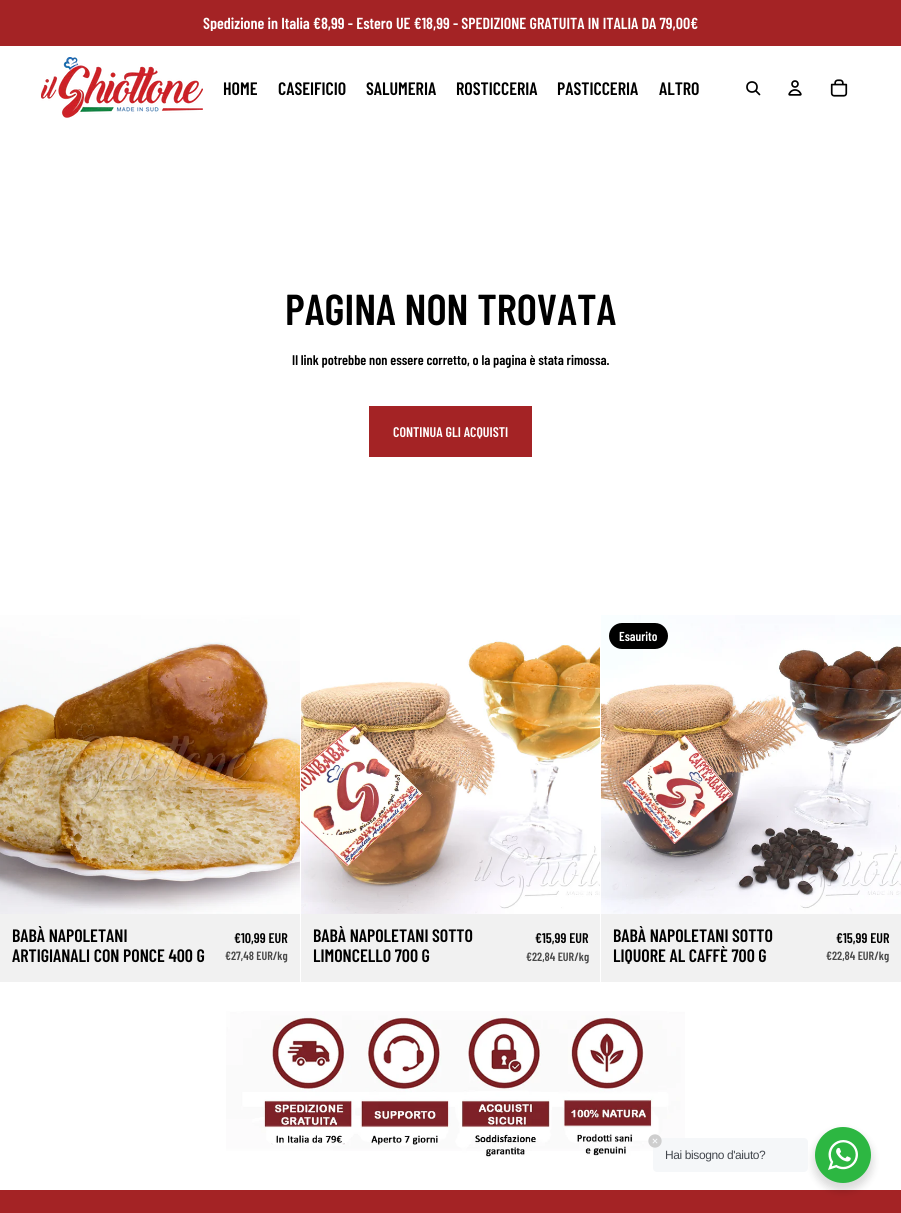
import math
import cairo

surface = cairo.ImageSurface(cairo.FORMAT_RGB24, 901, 1213)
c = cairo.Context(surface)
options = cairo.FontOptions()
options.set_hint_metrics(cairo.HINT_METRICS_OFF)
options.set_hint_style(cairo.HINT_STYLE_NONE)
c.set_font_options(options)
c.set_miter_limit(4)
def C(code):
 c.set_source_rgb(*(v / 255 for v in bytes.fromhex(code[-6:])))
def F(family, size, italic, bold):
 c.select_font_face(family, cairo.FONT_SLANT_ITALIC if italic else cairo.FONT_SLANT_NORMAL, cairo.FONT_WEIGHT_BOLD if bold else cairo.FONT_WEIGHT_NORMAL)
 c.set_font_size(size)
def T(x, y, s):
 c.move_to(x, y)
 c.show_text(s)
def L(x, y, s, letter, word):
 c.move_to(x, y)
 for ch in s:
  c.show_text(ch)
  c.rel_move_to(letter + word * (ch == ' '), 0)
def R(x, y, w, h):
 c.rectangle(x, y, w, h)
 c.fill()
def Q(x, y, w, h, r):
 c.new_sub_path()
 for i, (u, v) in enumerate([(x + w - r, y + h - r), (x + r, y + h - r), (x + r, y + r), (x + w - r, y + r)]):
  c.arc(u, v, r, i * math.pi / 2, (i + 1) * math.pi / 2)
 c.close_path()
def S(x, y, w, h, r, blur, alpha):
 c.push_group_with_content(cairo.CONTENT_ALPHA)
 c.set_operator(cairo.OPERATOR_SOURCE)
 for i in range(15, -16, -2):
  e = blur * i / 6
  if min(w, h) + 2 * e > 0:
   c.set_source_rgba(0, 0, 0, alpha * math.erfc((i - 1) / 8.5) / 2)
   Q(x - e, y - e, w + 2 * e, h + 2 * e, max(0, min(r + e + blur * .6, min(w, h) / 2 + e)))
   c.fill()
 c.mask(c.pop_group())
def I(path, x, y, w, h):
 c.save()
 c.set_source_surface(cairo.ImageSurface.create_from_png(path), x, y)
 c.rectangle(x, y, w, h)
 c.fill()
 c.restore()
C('ffffff')
c.paint()
C('a42325')
R(0,0,901,46)
c.save()
c.rectangle(111,15,680,16)
c.clip()
F('Barlow Condensed SemiBold',16,0,0)
C('ffffff')
T(203,29,'Spedizione in Italia €8,99 - Estero UE €18,99 - SPEDIZIONE GRATUITA IN ITALIA DA 79,00€')
c.restore()
I('1.png',41,57,162,61)
F('Barlow Condensed SemiBold',18,0,0)
C('000000')
T(223,95,'HOME')
T(278,95,'CASEIFICIO')
T(366,95,'SALUMERIA')
T(456,95,'ROSTICCERIA')
T(557,95,'PASTICCERIA')
T(659,95,'ALTRO')
c.new_path()
c.arc(752,87,5,0,2 * math.pi)
c.set_line_width(1.7)
c.stroke()
c.new_path()
c.move_to(756,91)
c.line_to(759.5,94.5)
c.set_line_cap(cairo.LINE_CAP_ROUND)
c.set_line_join(cairo.LINE_JOIN_ROUND)
c.stroke()
I('2.png',788,80,14,16)
I('3.png',830,79,18,18)
F('Barlow Condensed SemiBold',43.25,0,0)
T(285,325,'PAGINA NON TROVATA')
F('Barlow Condensed SemiBold',14,0,0)
T(292,365,'Il link potrebbe non essere corretto, o la pagina è stata rimossa.')
C('a42325')
R(369,406,163,51)
C('ffffff')
T(393,437,'CONTINUA GLI ACQUISTI')
C('f1f1f1')
R(0,914,300,68)
I('4.png',0,615,300,299)
F('Barlow Condensed SemiBold',18,0,0)
C('000000')
T(12,942,'BABÀ NAPOLETANI')
T(12,962,'ARTIGIANALI CON PONCE 400 G')
F('Barlow Condensed SemiBold',14,0,0)
T(234,943,'€10,99 EUR')
F('Barlow Condensed SemiBold',12,0,0)
C('484848')
T(225,960,'€27,48 EUR/kg')
C('f1f1f1')
R(301,914,299,68)
I('5.png',301,615,299,299)
F('Barlow Condensed SemiBold',18,0,0)
C('000000')
T(313,942,'BABÀ NAPOLETANI SOTTO')
T(313,962,'LIMONCELLO 700 G')
F('Barlow Condensed SemiBold',14,0,0)
T(535,943,'€15,99 EUR')
F('Barlow Condensed SemiBold',12,0,0)
C('484848')
T(526,961,'€22,84 EUR/kg')
C('f1f1f1')
R(601,914,300,68)
I('6.png',601,615,300,299)
C('000000')
Q(609,623,59,26,13)
c.fill()
F('Barlow Condensed SemiBold',13,0,0)
C('ffffff')
T(619,641,'Esaurito')
F('Barlow Condensed SemiBold',18,0,0)
C('000000')
T(613,942,'BABÀ NAPOLETANI SOTTO')
T(613,962,'LIQUORE AL CAFFÈ 700 G')
F('Barlow Condensed SemiBold',14,0,0)
T(836,943,'€15,99 EUR')
F('Barlow Condensed SemiBold',12,0,0)
C('484848')
T(826,960,'€22,84 EUR/kg')
I('7.png',226,1011,459,147)
C('a42325')
R(0,1190,901,23)
C('000000')
S(813,1131,60,60,30,4,.14)
C('f5f7f9')
Q(653,1138,155,34,4)
c.fill()
I('8.png',648,1134,14,14)
F('Liberation Sans',12,0,0)
C('43474e')
L(665,1159,'Hai bisogno d\'aiuto?',-.4,0)
C('2db742')
c.new_path()
c.arc(843,1155,28,0,2 * math.pi)
c.fill()
I('9.png',828,1140,30,30)
surface.write_to_png('o.png')
